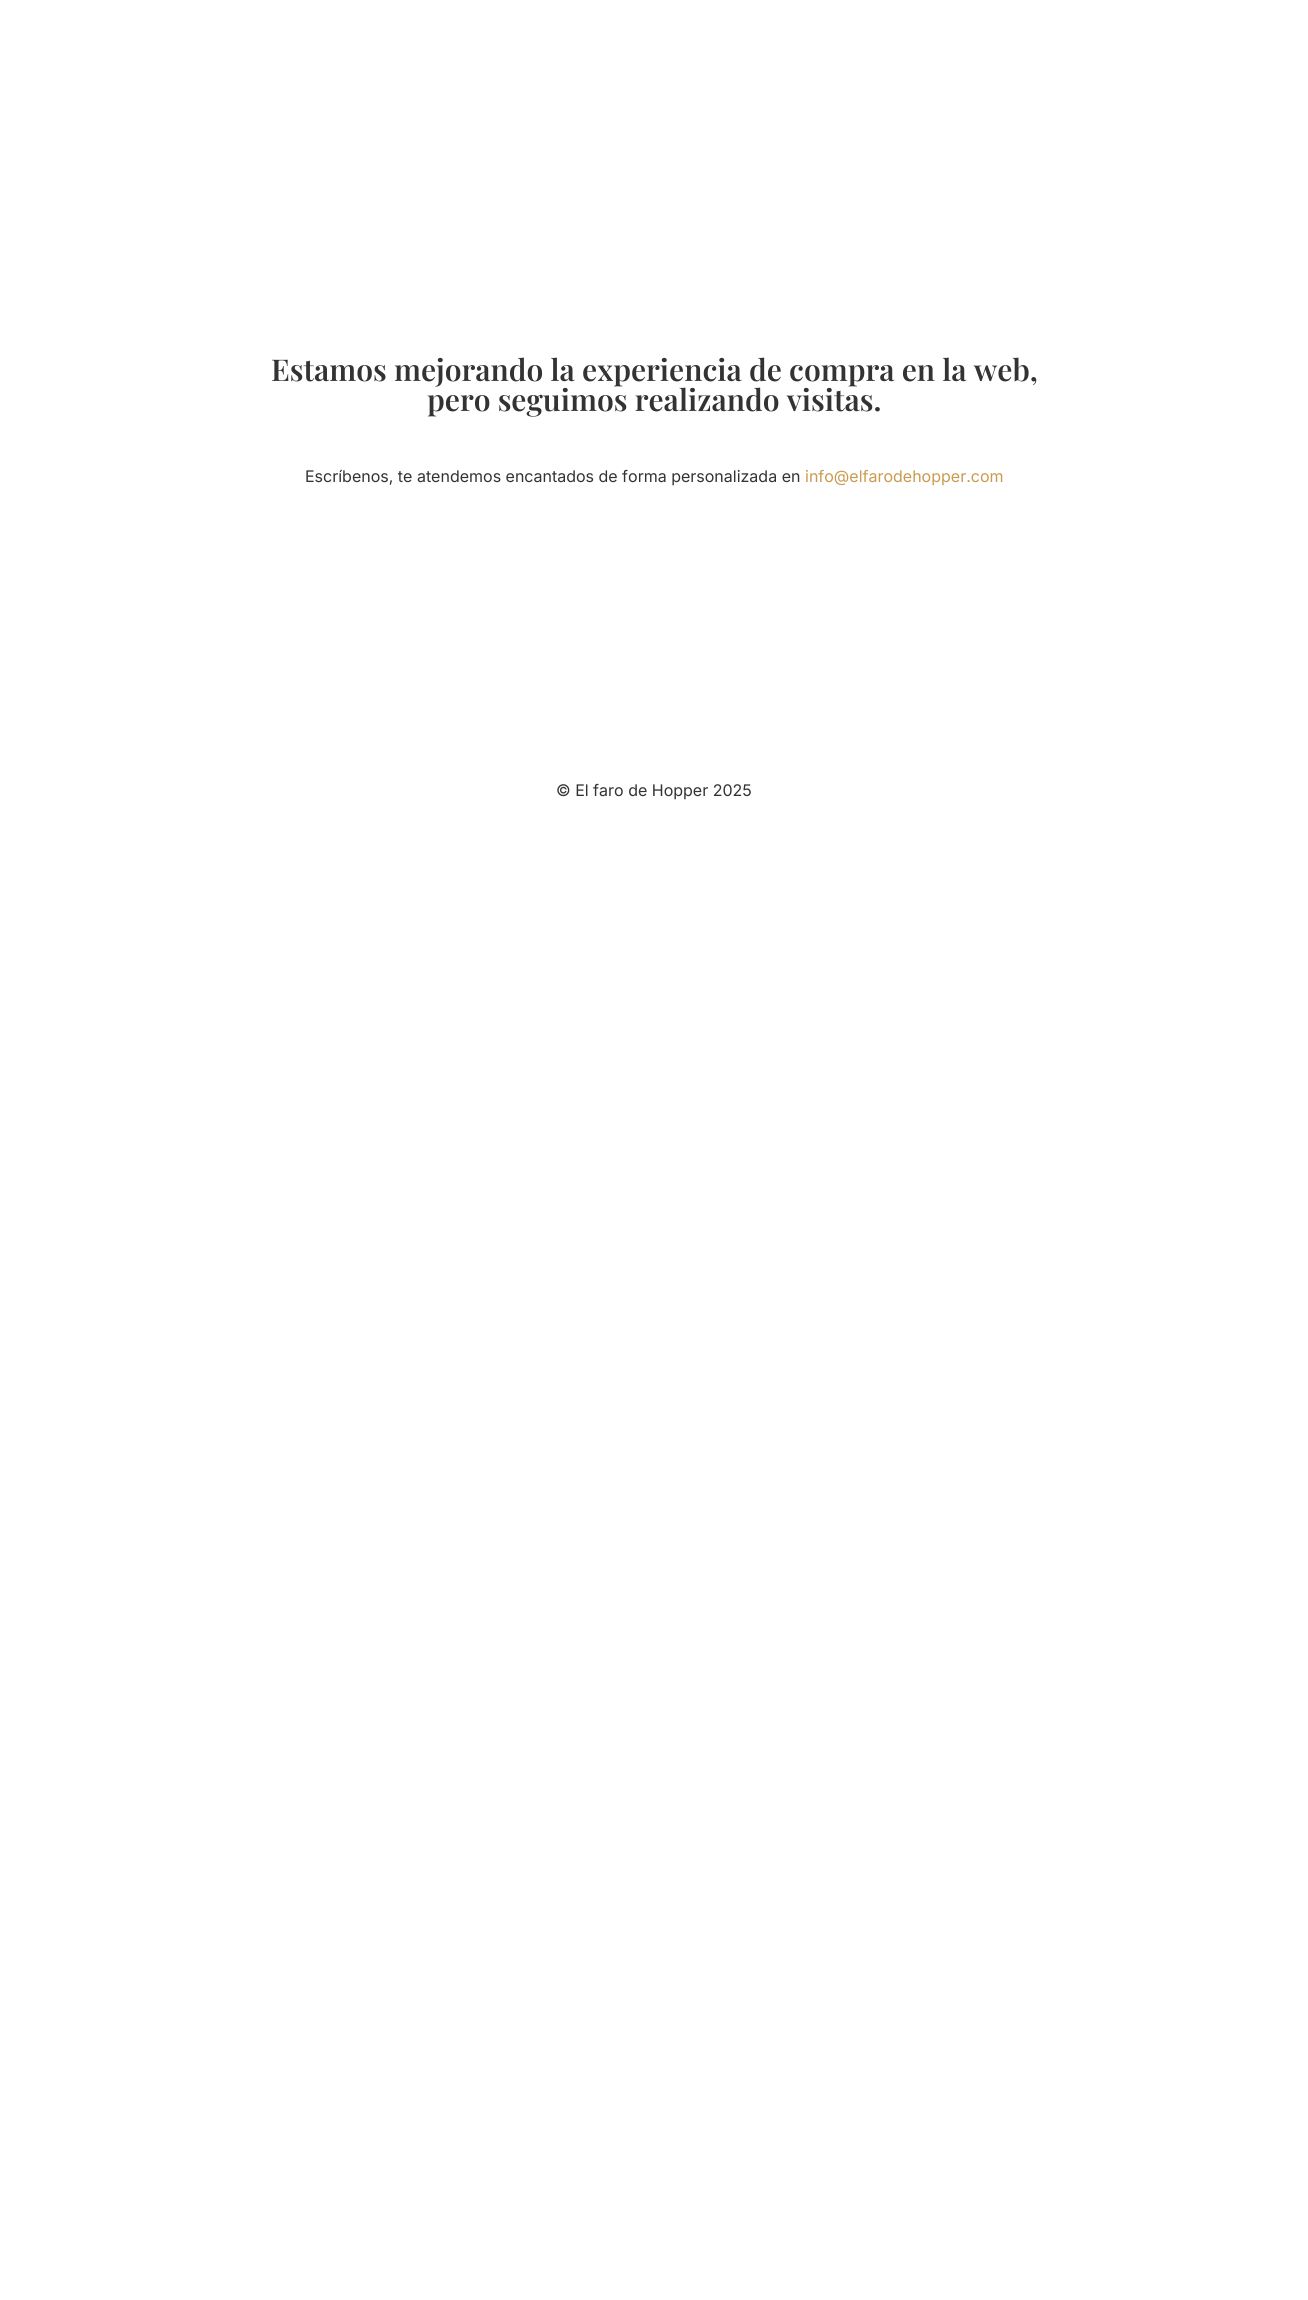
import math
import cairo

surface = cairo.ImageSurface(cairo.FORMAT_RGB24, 1308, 2300)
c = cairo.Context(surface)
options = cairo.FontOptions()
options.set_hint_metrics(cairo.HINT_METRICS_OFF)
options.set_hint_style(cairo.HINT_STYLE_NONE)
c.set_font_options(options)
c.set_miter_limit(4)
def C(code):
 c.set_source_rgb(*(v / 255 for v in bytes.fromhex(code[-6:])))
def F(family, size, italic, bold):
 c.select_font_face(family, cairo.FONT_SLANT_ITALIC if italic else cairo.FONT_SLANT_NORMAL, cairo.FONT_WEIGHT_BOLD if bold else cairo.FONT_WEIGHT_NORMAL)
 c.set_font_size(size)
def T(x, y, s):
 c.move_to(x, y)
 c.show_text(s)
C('ffffff')
c.paint()
F('Playfair Display SemiBold',30,0,0)
C('333333')
T(271,381,'Estamos mejorando la experiencia de compra en la web,')
T(427,411,'pero seguimos realizando visitas.')
F('Inter',16,0,0)
T(305,482,'Escríbenos, te atendemos encantados de forma personalizada en')
C('c99b4e')
T(805,482,'info@elfarodehopper.com')
C('333333')
T(556,796,'© El faro de Hopper 2025')
surface.write_to_png('o.png')
